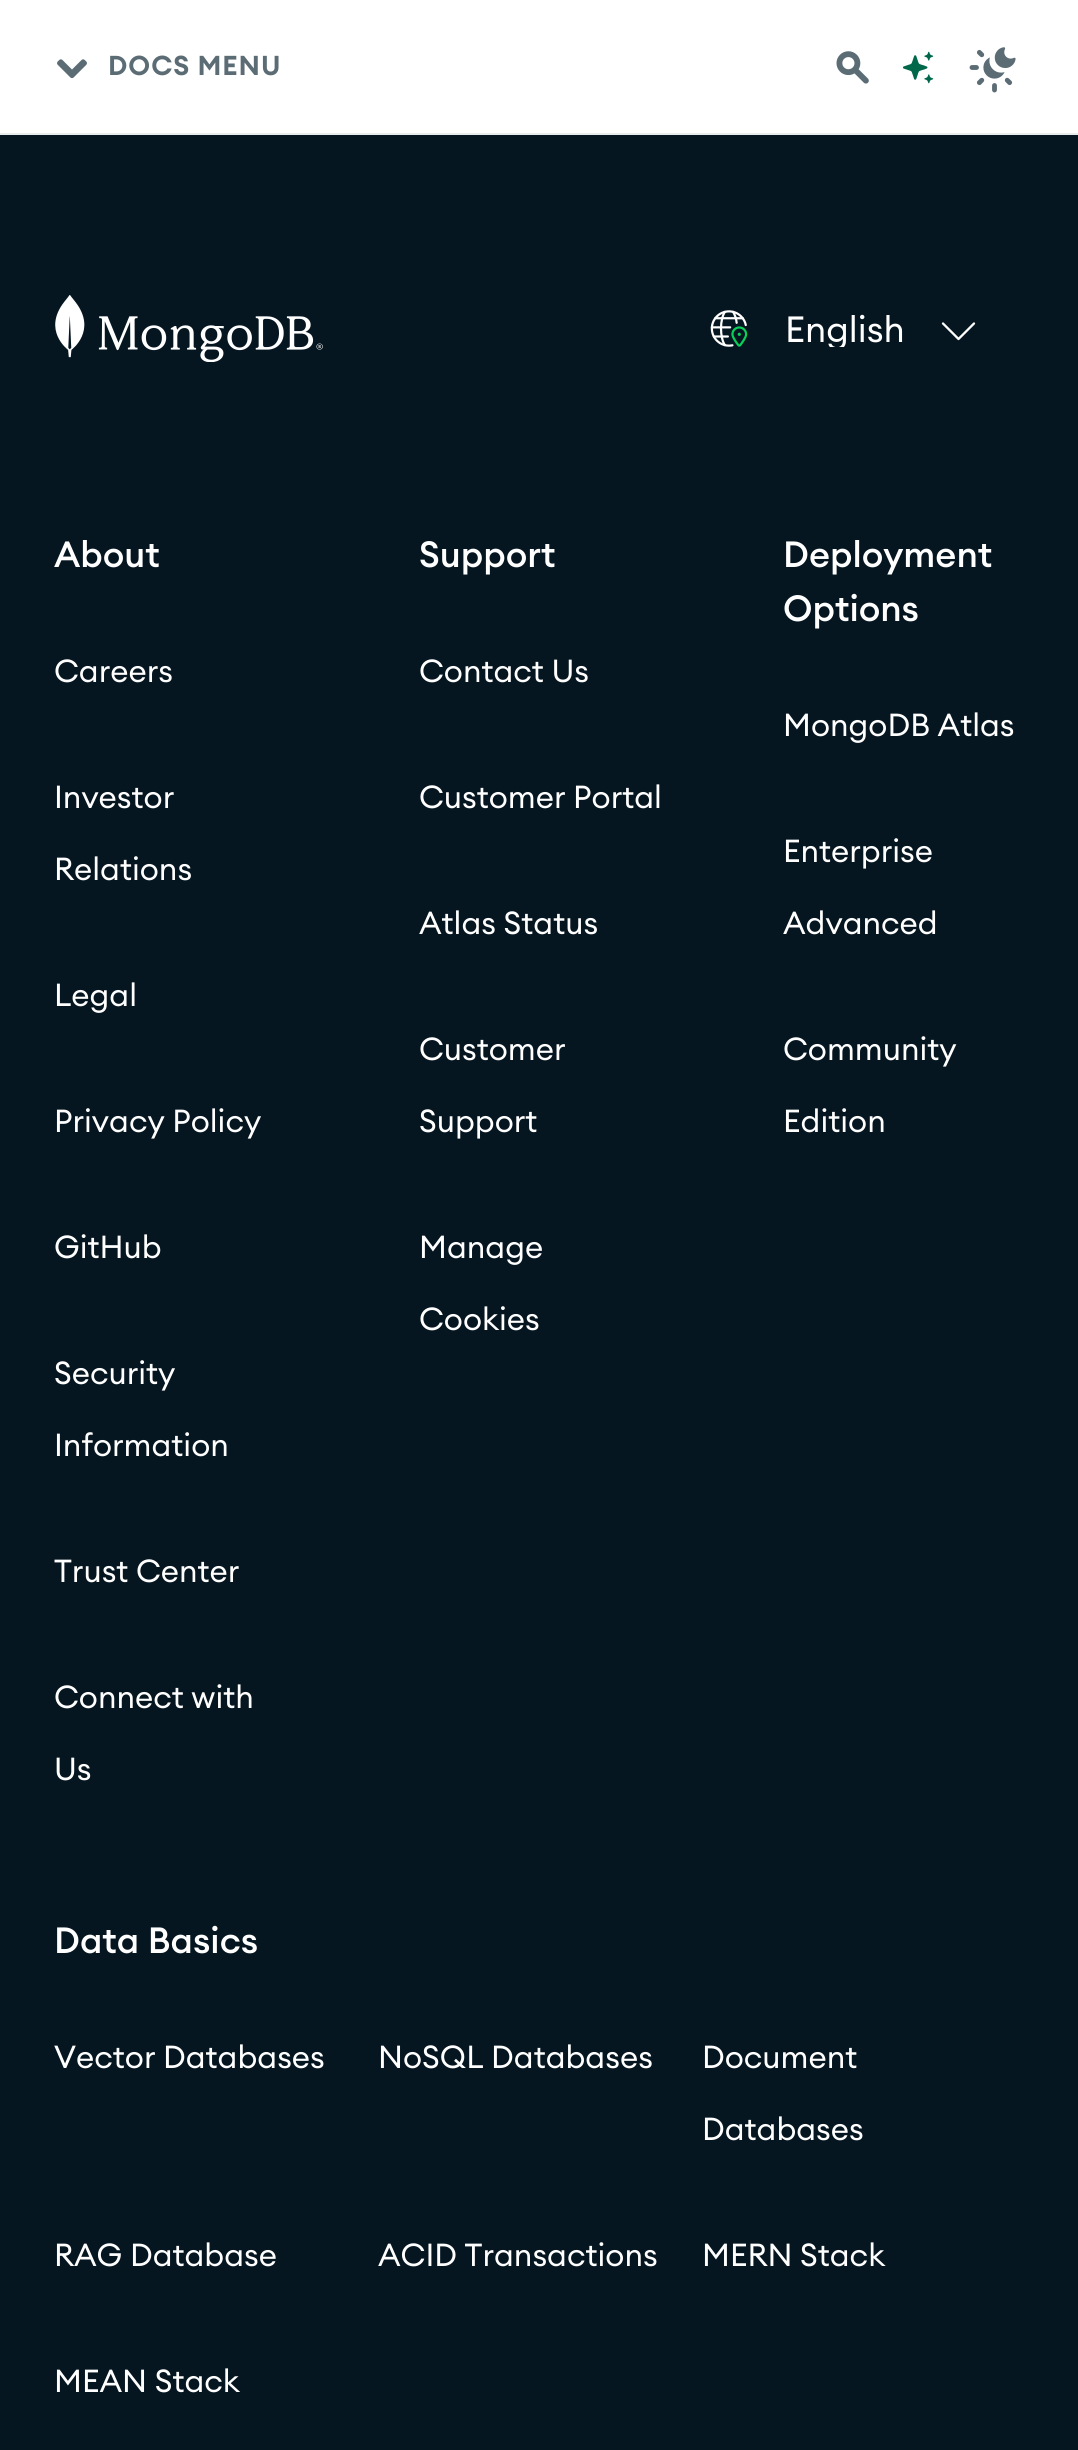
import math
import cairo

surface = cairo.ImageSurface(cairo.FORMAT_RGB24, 1078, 2450)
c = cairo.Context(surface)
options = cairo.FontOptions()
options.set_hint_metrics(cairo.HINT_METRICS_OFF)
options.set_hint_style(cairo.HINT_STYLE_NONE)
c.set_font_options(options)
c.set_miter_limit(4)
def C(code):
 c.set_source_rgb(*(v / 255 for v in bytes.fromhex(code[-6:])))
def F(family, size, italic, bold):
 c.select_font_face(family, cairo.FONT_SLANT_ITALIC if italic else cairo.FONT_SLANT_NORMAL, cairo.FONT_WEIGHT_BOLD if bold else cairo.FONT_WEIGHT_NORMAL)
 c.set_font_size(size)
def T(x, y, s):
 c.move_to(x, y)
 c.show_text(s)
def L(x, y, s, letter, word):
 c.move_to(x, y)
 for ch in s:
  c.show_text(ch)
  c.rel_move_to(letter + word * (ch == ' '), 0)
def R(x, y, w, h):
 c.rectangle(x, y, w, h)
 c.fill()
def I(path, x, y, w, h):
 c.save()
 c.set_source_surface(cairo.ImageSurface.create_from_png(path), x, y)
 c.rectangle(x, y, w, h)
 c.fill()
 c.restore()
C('061621')
c.paint()
C('ffffff')
R(0,0,1078,133)
C('e8edeb')
R(0,133,1078,2)
I('1.png',57,59,30,20)
F('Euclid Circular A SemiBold',27,0,0)
C('5c6c75')
L(108,75,'DOCS MENU',1,0)
I('2.png',836,51,33,33)
I('3.png',903,51,31,33)
I('4.png',969,47,47,46)
I('5.png',55,295,268,67)
I('6.png',710,310,38,37)
c.save()
c.rectangle(749,311,156,36)
c.clip()
F('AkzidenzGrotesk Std',36,0,0)
C('ffffff')
T(785,342,'English')
c.restore()
c.new_path()
c.move_to(943,323.5)
c.line_to(958.5,339)
c.line_to(974,323.5)
C('ffffff')
c.set_line_width(2.3)
c.set_line_cap(cairo.LINE_CAP_ROUND)
c.set_line_join(cairo.LINE_JOIN_ROUND)
c.stroke()
F('AkzidenzGrotesk Std Medium',36,0,0)
T(54,567,'About')
F('AkzidenzGrotesk Std',31.5,0,0)
T(54,682,'Careers')
T(54,808,'Investor')
T(54,880,'Relations')
T(54,1006,'Legal')
T(54,1132,'Privacy Policy')
T(54,1258,'GitHub')
T(54,1384,'Security')
T(54,1456,'Information')
T(54,1582,'Trust Center')
T(54,1708,'Connect with')
T(54,1780,'Us')
F('AkzidenzGrotesk Std Medium',36,0,0)
T(419,567,'Support')
F('AkzidenzGrotesk Std',31.5,0,0)
T(419,682,'Contact Us')
T(419,808,'Customer Portal')
T(419,934,'Atlas Status')
T(419,1060,'Customer')
T(419,1132,'Support')
T(419,1258,'Manage')
T(419,1330,'Cookies')
F('AkzidenzGrotesk Std Medium',36,0,0)
T(783,567,'Deployment')
T(783,621,'Options')
F('AkzidenzGrotesk Std',31.5,0,0)
T(783,736,'MongoDB Atlas')
T(783,862,'Enterprise')
T(783,934,'Advanced')
T(783,1060,'Community')
T(783,1132,'Edition')
F('AkzidenzGrotesk Std Medium',36,0,0)
T(54,1953,'Data Basics')
F('AkzidenzGrotesk Std',31.5,0,0)
T(54,2068,'Vector Databases')
T(378,2068,'NoSQL Databases')
T(702,2068,'Document')
T(702,2140,'Databases')
T(54,2266,'RAG Database')
T(378,2266,'ACID Transactions')
T(702,2266,'MERN Stack')
T(54,2392,'MEAN Stack')
surface.write_to_png('o.png')
